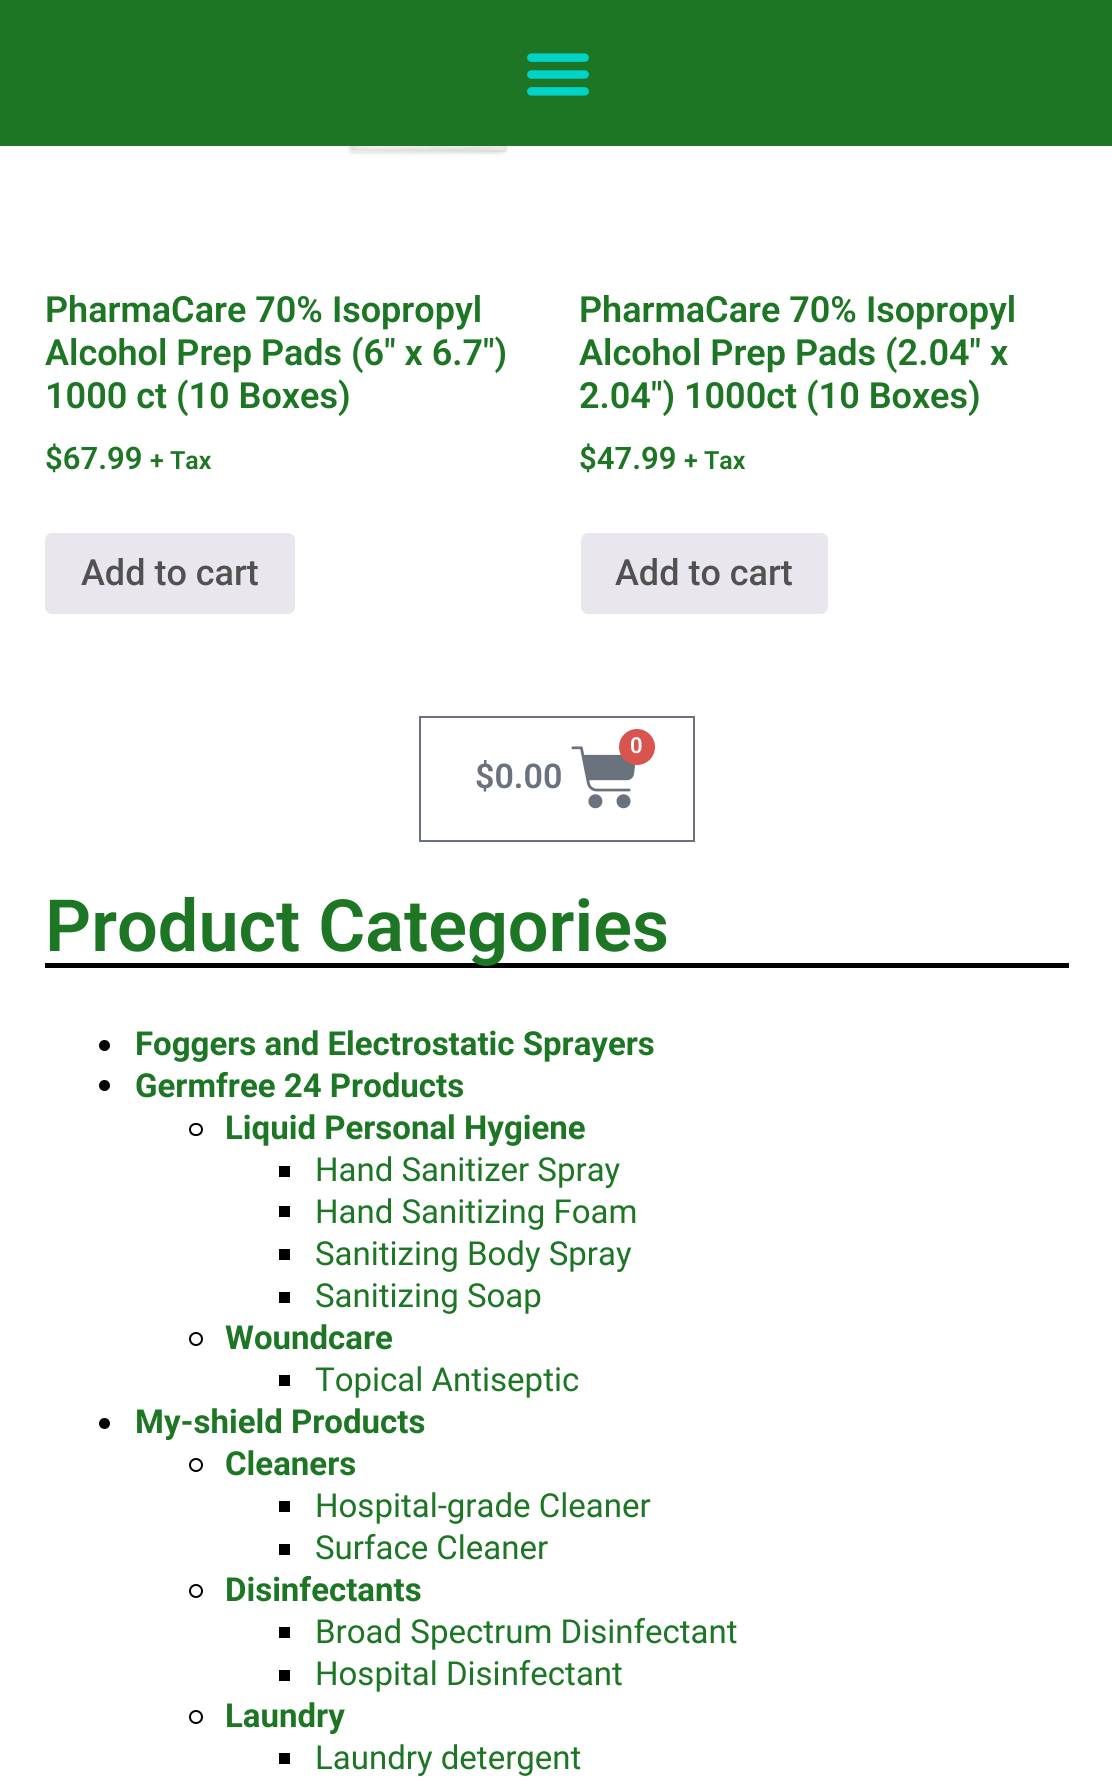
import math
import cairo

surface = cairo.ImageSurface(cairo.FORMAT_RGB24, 1112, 1792)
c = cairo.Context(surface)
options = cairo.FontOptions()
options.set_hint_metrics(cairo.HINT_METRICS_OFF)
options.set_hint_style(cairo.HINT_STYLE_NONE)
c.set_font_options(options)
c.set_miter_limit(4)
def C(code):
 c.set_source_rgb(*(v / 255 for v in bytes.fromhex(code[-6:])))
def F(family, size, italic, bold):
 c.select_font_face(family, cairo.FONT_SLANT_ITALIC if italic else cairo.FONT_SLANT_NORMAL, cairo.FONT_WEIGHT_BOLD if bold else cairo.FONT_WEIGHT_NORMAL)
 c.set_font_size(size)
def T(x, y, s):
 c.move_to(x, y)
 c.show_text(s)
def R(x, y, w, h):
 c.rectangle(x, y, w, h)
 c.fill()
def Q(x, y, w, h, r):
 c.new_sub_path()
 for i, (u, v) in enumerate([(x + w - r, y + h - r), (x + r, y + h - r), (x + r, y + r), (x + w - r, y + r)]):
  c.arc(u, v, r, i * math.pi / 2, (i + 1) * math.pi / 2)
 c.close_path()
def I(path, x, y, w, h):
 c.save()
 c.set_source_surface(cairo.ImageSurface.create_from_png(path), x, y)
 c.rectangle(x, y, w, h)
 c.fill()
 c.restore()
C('ffffff')
c.paint()
C('1c7624')
R(0,0,1112,146)
I('1.png',527,53,62,43)
I('2.png',347,146,161,9)
F('Roboto SemiBold',36,0,0)
T(45,322,'PharmaCare 70% Isopropyl')
T(45,365,'Alcohol Prep Pads (6″ x 6.7″)')
T(45,408,'1000 ct (10 Boxes)')
F('Roboto SemiBold',31,0,0)
T(45,469,'$67.99')
F('Roboto SemiBold',25,0,0)
T(150,469,'+ Tax')
C('e9e6ed')
Q(45,533,250,81,7)
c.fill()
F('Roboto Medium',36,0,0)
C('515151')
T(81,585,'Add to cart')
F('Roboto SemiBold',36,0,0)
C('1c7624')
T(579,322,'PharmaCare 70% Isopropyl')
T(579,365,'Alcohol Prep Pads (2.04″ x')
T(579,408,'2.04″) 1000ct (10 Boxes)')
F('Roboto SemiBold',31,0,0)
T(579,469,'$47.99')
F('Roboto SemiBold',25,0,0)
T(684,469,'+ Tax')
C('e9e6ed')
Q(581,533,247,81,7)
c.fill()
F('Roboto Medium',36,0,0)
C('515151')
T(615,585,'Add to cart')
c.rectangle(420,717,274,124)
C('69727d')
c.stroke()
I('3.png',571,746,65,63)
C('d9534f')
c.arc(637,747,18,0,2 * math.pi)
c.fill()
F('Roboto SemiBold',22,0,0)
C('ffffff')
T(630,753,'0')
F('Roboto SemiBold',34,0,0)
C('69727d')
T(475,788,'$0.00')
C('000000')
R(45,963,1024,5)
F('Roboto SemiBold',72,0,0)
C('1c7624')
T(45,951,'Product Categories')
C('000000')
c.new_path()
c.arc(104.5,1045.5,5.5,0,2 * math.pi)
c.fill()
F('Roboto',33,0,1)
C('1c7624')
T(135,1055,'Foggers and Electrostatic Sprayers')
C('000000')
c.new_path()
c.arc(104.5,1085.5,5.5,0,2 * math.pi)
c.fill()
C('1c7624')
T(135,1097,'Germfree 24 Products')
Q(190,1124,12,11,5.5)
C('000000')
c.stroke()
C('1c7624')
T(225,1139,'Liquid Personal Hygiene')
C('000000')
R(279,1166,11,11)
F('Roboto',33,0,0)
C('1c7624')
T(315,1181,'Hand Sanitizer Spray')
C('000000')
R(279,1206,11,11)
C('1c7624')
T(315,1223,'Hand Sanitizing Foam')
C('000000')
R(279,1249,11,11)
C('1c7624')
T(315,1265,'Sanitizing Body Spray')
C('000000')
R(279,1292,11,11)
C('1c7624')
T(315,1307,'Sanitizing Soap')
c.new_path()
c.arc(196,1339,6,0,2 * math.pi)
C('000000')
c.stroke()
F('Roboto',33,0,1)
C('1c7624')
T(225,1349,'Woundcare')
C('000000')
R(279,1375,11,11)
F('Roboto',33,0,0)
C('1c7624')
T(315,1391,'Topical Antiseptic')
C('000000')
c.new_path()
c.arc(104.5,1423.5,5.5,0,2 * math.pi)
c.fill()
F('Roboto',33,0,1)
C('1c7624')
T(135,1433,'My-shield Products')
c.new_path()
c.arc(196,1465,6,0,2 * math.pi)
C('000000')
c.stroke()
C('1c7624')
T(225,1475,'Cleaners')
C('000000')
R(279,1501,11,11)
F('Roboto',33,0,0)
C('1c7624')
T(315,1517,'Hospital-grade Cleaner')
C('000000')
R(279,1544,11,11)
C('1c7624')
T(315,1559,'Surface Cleaner')
c.new_path()
c.arc(196,1591,6,0,2 * math.pi)
C('000000')
c.stroke()
F('Roboto',33,0,1)
C('1c7624')
T(225,1601,'Disinfectants')
C('000000')
R(279,1627,11,11)
F('Roboto',33,0,0)
C('1c7624')
T(315,1643,'Broad Spectrum Disinfectant')
C('000000')
R(279,1670,11,11)
C('1c7624')
T(315,1685,'Hospital Disinfectant')
c.new_path()
c.arc(196,1717,6,0,2 * math.pi)
C('000000')
c.stroke()
F('Roboto',33,0,1)
C('1c7624')
T(225,1727,'Laundry')
C('000000')
R(279,1753,11,11)
F('Roboto',33,0,0)
C('1c7624')
T(315,1769,'Laundry detergent')
surface.write_to_png('o.png')
